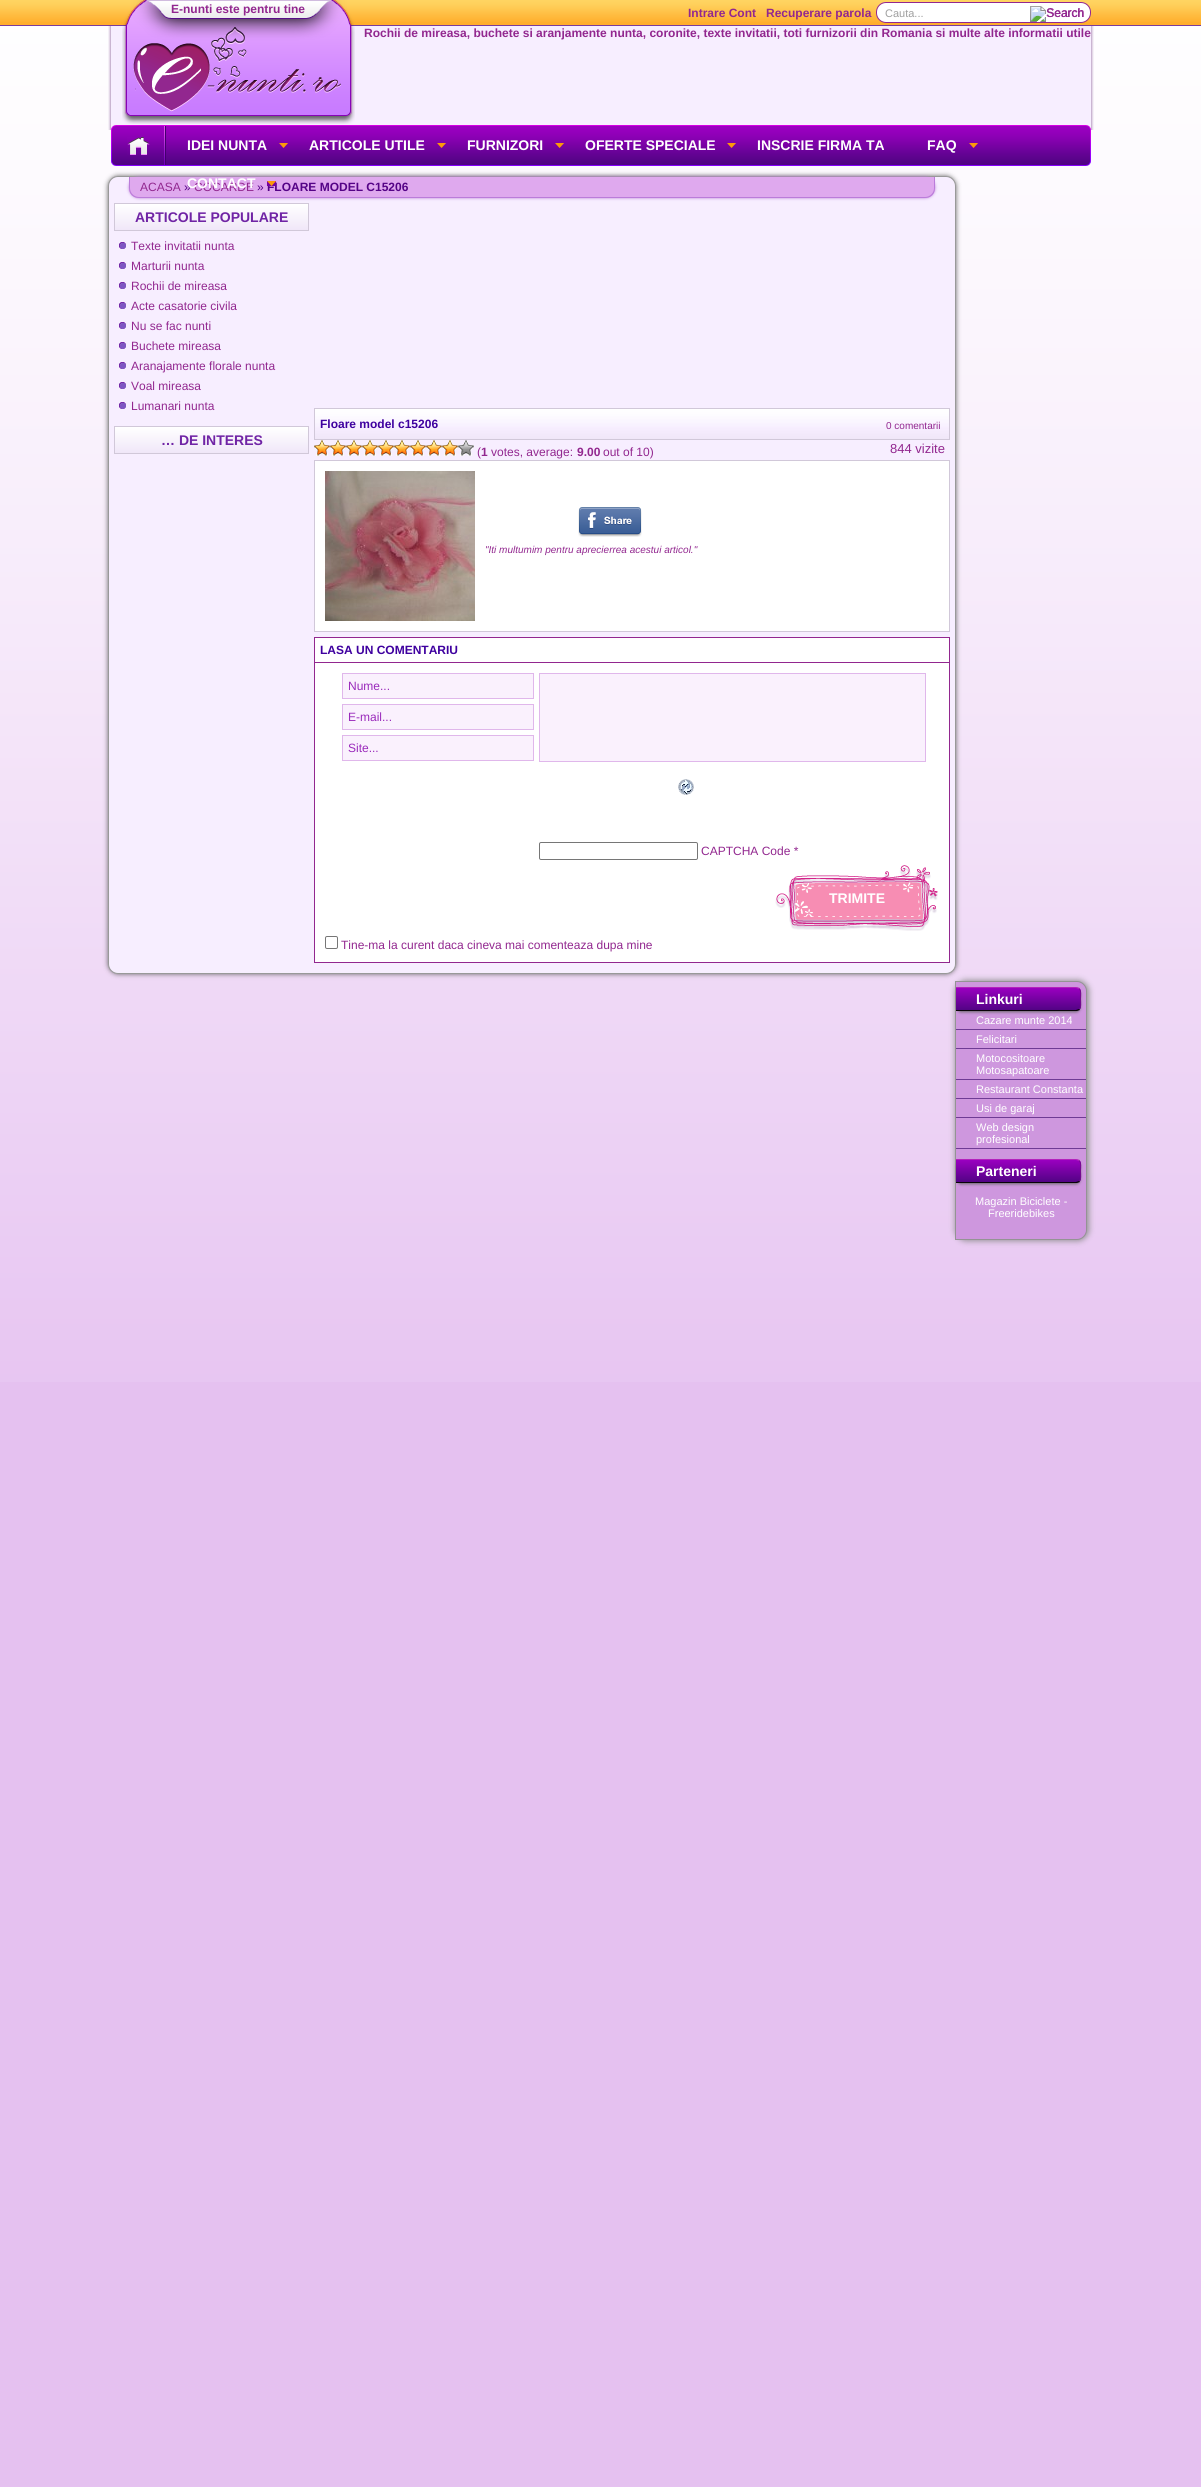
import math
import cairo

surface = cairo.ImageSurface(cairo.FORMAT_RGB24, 1201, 2487)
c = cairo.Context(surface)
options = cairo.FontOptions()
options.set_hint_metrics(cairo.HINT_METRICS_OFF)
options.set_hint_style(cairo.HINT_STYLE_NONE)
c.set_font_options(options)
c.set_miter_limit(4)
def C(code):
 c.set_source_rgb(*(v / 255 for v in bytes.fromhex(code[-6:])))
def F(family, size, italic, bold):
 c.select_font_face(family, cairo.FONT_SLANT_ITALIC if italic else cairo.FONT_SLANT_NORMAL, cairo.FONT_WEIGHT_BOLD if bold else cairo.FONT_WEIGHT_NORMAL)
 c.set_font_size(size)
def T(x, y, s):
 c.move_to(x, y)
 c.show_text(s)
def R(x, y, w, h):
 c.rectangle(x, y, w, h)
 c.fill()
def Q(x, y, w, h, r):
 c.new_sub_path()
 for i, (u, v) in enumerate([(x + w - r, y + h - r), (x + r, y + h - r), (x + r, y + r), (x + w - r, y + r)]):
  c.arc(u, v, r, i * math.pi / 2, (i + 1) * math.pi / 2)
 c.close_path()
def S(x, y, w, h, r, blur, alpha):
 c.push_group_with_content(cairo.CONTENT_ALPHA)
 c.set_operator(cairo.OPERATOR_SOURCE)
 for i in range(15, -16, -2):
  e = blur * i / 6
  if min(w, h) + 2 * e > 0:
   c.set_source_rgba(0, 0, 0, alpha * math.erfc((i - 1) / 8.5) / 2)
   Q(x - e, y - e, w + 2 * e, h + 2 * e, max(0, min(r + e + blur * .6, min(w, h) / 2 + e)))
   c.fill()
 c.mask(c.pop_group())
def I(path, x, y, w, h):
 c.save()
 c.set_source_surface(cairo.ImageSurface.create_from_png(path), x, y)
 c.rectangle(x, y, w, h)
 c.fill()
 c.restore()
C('e5c1f0')
c.paint()
I('1.png',0,26,1201,1356)
C('ffae2c')
R(0,22,1201,3)
I('2.png',0,0,1201,22)
C('7b3c9a')
R(0,25,1201,1)
I('3.png',123,0,231,26)
F('Liberation Sans',12,0,1)
C('92278f')
T(171,13,'E-nunti este pentru tine')
T(688,17,'Intrare Cont')
T(766,17,'Recuperare parola')
C('ffffff')
Q(876.5,2.5,214,20,9.5)
c.fill_preserve()
C('92278f')
c.set_line_width(1)
c.stroke()
F('Liberation Sans',11,0,0)
C('9f9f9f')
T(885,17,'Cauta...')
I('4.png',1030,6,54,16)
F('Liberation Sans',12,0,0)
C('92278f')
T(1046,17,'Search')
I('5.png',108,26,986,104)
I('6.png',122,26,233,98)
F('Liberation Sans',12,0,1)
T(364,37,'Rochii de mireasa, buchete si aranjamente nunta, coronite, texte invitatii, toti furnizorii din Romania si multe alte informatii utile')
I('7.png',111,125,5,41)
I('8.png',116,126,970,39)
C('d600e4')
R(116,125,970,1)
C('8600fe')
R(116,165,970,1)
I('9.png',164,126,2,39)
I('10.png',127,137,23,18)
I('11.png',279,143,9,5)
F('Liberation Sans',14,0,1)
C('ffffff')
T(187,150,'IDEI NUNTA')
I('11.png',437,143,9,5)
T(309,150,'ARTICOLE UTILE')
I('11.png',555,143,9,5)
T(467,150,'FURNIZORI')
I('11.png',727,143,9,5)
T(585,150,'OFERTE SPECIALE')
T(757,150,'INSCRIE FIRMA TA')
I('11.png',969,143,9,5)
T(927,150,'FAQ')
C('949394')
S(955,980,134,261,11,3,1)
C('ce97de')
c.new_path()
c.move_to(955.5,981.5)
c.line_to(1077,981.5)
c.curve_to(1082,981.5,1086.5,986,1086.5,991)
c.line_to(1086.5,1230)
c.curve_to(1086.5,1235,1082,1239.5,1077,1239.5)
c.line_to(955.5,1239.5)
c.close_path()
c.fill_preserve()
C('949394')
c.stroke()
C('666666')
S(108,176,848,798,10,2.5,1)
C('f7eeff')
Q(108.5,176.5,847,797,9.5)
c.fill_preserve()
C('999999')
c.stroke()
C('ba7cd6')
S(129,177,806,21,10,1.5,1)
C('dfa9ee')
c.new_path()
c.move_to(129,177)
c.line_to(935,177)
c.line_to(935,188)
c.curve_to(935,193.5,930.5,198,925,198)
c.line_to(139,198)
c.curve_to(133.5,198,129,193.5,129,188)
c.close_path()
c.fill()
C('bb7cda')
c.set_fill_rule(cairo.FILL_RULE_EVEN_ODD)
c.new_path()
c.move_to(129,177)
c.line_to(935,177)
c.line_to(935,188)
c.curve_to(935,194,931,198,925,198)
c.line_to(139,198)
c.curve_to(133,198,129,194,129,188)
c.close_path()
c.move_to(130,177)
c.line_to(934,177)
c.line_to(934,188)
c.curve_to(934,193,930,197,925,197)
c.line_to(139,197)
c.curve_to(134,197,130,193,130,188)
c.close_path()
c.fill()
F('Liberation Sans',12,0,1)
C('550387')
T(267,191,'FLOARE MODEL C15206')
I('11.png',267,181,9,5)
F('Liberation Sans',12,0,0)
T(184,191,'»')
C('92278f')
T(194,191,'COCARDE')
F('Liberation Sans',14,0,1)
C('ffffff')
T(187,188,'CONTACT')
I('12.png',1086,125,5,41)
F('Liberation Sans',12,0,0)
C('92278f')
T(140,191,'ACASA')
C('550387')
T(257,191,'»')
gradient = cairo.LinearGradient(212,204,212,230)
gradient.add_color_stop_rgba(0,1,1,1,1)
gradient.add_color_stop_rgba(1,0.941,0.906,0.973,1)
c.set_source(gradient)
R(115,204,193,26)
c.rectangle(114.5,203.5,194,27)
C('d1c8d9')
c.stroke()
F('Liberation Sans',14,0,1)
C('7024a5')
T(135,222,'ARTICOLE POPULARE')
I('13.png',119,242,7,7)
F('Liberation Sans',12,0,0)
C('92278f')
T(131,250,'Texte invitatii nunta')
I('13.png',119,262,7,7)
T(131,270,'Marturii nunta')
I('13.png',119,282,7,7)
T(131,290,'Rochii de mireasa')
I('13.png',119,302,7,7)
T(131,310,'Acte casatorie civila')
I('13.png',119,322,7,7)
T(131,330,'Nu se fac nunti')
I('13.png',119,342,7,7)
T(131,350,'Buchete mireasa')
I('13.png',119,362,7,7)
T(131,370,'Aranajamente florale nunta')
I('13.png',119,382,7,7)
T(131,390,'Voal mireasa')
I('13.png',119,402,7,7)
T(131,410,'Lumanari nunta')
gradient = cairo.LinearGradient(212,427,212,453)
gradient.add_color_stop_rgba(0,1,1,1,1)
gradient.add_color_stop_rgba(1,0.941,0.906,0.973,1)
c.set_source(gradient)
R(115,427,193,26)
c.rectangle(114.5,426.5,194,27)
C('d1c8d9')
c.stroke()
F('Liberation Sans',14,0,1)
C('7024a5')
T(161,445,'… DE INTERES')
I('14.png',315,409,634,30)
c.rectangle(314.5,408.5,635,31)
C('d1c8d9')
c.stroke()
F('Liberation Sans',12,0,1)
C('3e009f')
T(320,428,'Floare model c15206')
F('Liberation Sans',10,0,0)
C('92278f')
T(886,429,'0 comentarii')
I('15.png',314,440,16,16)
I('15.png',330,440,16,16)
I('15.png',346,440,16,16)
I('15.png',362,440,16,16)
I('15.png',378,440,16,16)
I('15.png',394,440,16,16)
I('15.png',410,440,16,16)
I('15.png',426,440,16,16)
I('15.png',442,440,16,16)
I('16.png',458,440,16,16)
F('Liberation Sans',12,0,0)
T(477,456,'(')
F('Liberation Sans',12,0,1)
T(481,456,'1')
F('Liberation Sans',12,0,0)
T(491,456,'votes, average:')
F('Liberation Sans',12,0,1)
T(577,456,'9.00')
F('Liberation Sans',12,0,0)
T(603,456,'out of 10)')
F('Liberation Sans',13,0,0)
T(890,453,'844 vizite')
C('ffffff')
c.rectangle(314.5,460.5,635,171)
c.fill_preserve()
C('d1c8d9')
c.stroke()
I('17.png',325,471,150,150)
I('18.png',578,507,64,30)
F('Liberation Sans',10,1,0)
C('92278f')
T(485,553,'"Iti multumim pentru aprecierrea acestui articol."')
C('ffffff')
R(315,638,634,24)
C('92278f')
R(314,637,636,1)
R(949,637,1,25)
R(314,637,1,25)
F('Liberation Sans',12,0,1)
C('3e009f')
T(320,654,'LASA UN COMENTARIU')
C('ffffff')
c.rectangle(314.5,662.5,635,300)
c.fill_preserve()
C('92278f')
c.stroke()
C('faf1fd')
c.rectangle(342.5,673.5,191,25)
c.fill_preserve()
C('e0b7eb')
c.stroke()
F('Liberation Sans',12,0,0)
C('9a2abb')
T(348,690,'Nume...')
C('faf1fd')
c.rectangle(342.5,704.5,191,25)
c.fill_preserve()
C('e0b7eb')
c.stroke()
C('9a2abb')
T(348,721,'E-mail...')
C('faf1fd')
c.rectangle(342.5,735.5,191,25)
c.fill_preserve()
C('e0b7eb')
c.stroke()
C('9a2abb')
T(348,752,'Site...')
C('faf1fd')
c.rectangle(539.5,673.5,386,88)
c.fill_preserve()
C('e0b7eb')
c.stroke()
I('19.png',678,779,16,16)
Q(539.5,842.5,158,17,1.5)
C('767676')
c.stroke()
C('92278f')
T(701,855,'CAPTCHA Code *')
I('20.png',775,865,163,66)
F('Liberation Sans',14,0,1)
C('ffffff')
T(829,903,'TRIMITE')
Q(325.5,936.5,12,12,1.5)
C('767676')
c.stroke()
F('Liberation Sans',12,0,0)
C('92278f')
T(341,949,'Tine-ma la curent daca cineva mai comenteaza dupa mine')
C('666666')
S(957,990,123,22,4,1.5,1)
c.save()
c.set_fill_rule(cairo.FILL_RULE_WINDING)
c.new_path()
c.move_to(956,987)
c.line_to(1076,987)
c.curve_to(1079,987,1081,989,1081,992)
c.line_to(1081,1006)
c.curve_to(1081,1009,1079,1011,1076,1011)
c.line_to(956,1011)
c.close_path()
c.clip()
gradient = cairo.LinearGradient(1018,988,1018,1010)
gradient.add_color_stop_rgba(0,0.604,0,0.753,1)
gradient.add_color_stop_rgba(1,0.322,0.012,0.522,1)
c.set_source(gradient)
R(956,988,125,22)
c.restore()
C('b422bd')
c.set_fill_rule(cairo.FILL_RULE_WINDING)
c.new_path()
c.move_to(956,987)
c.line_to(956,988)
c.line_to(1076,988)
c.line_to(1079,989)
c.line_to(1080,988)
c.curve_to(1079,988,1078,987,1076,987)
c.close_path()
c.fill()
C('740a8d')
c.new_path()
c.move_to(1079,1009)
c.curve_to(1081,1006.5,1080,1002,1080,999)
c.curve_to(1080,996,1081,991.5,1079,989)
c.line_to(1079.5,988.5)
c.curve_to(1082,990.5,1081,996,1081,999)
c.curve_to(1081,1002,1082,1007.5,1079.5,1009.5)
c.close_path()
c.fill()
C('090209')
c.new_path()
c.move_to(956,1010)
c.line_to(956,1011)
c.line_to(1077,1011)
c.line_to(1080,1010)
c.line_to(1079,1009)
c.line_to(1076,1010)
c.close_path()
c.fill()
F('Liberation Sans',14,0,1)
C('ffffff')
T(976,1004,'Linkuri')
C('6f3b94')
R(956,1029,130,1)
F('Liberation Sans',11,0,0)
C('ffffff')
T(976,1024,'Cazare munte 2014')
C('6f3b94')
R(956,1048,130,1)
C('ffffff')
T(976,1043,'Felicitari')
C('6f3b94')
R(956,1079,130,1)
C('ffffff')
T(976,1062,'Motocositoare')
T(976,1074,'Motosapatoare')
C('6f3b94')
R(956,1098,130,1)
C('ffffff')
T(976,1093,'Restaurant Constanta')
C('6f3b94')
R(956,1117,130,1)
C('ffffff')
T(976,1112,'Usi de garaj')
C('6f3b94')
R(956,1148,130,1)
C('ffffff')
T(976,1131,'Web design')
T(976,1143,'profesional')
C('666666')
S(957,1162,123,22,4,1.5,1)
c.save()
c.new_path()
c.move_to(956,1159)
c.line_to(1076,1159)
c.curve_to(1079,1159,1081,1161,1081,1164)
c.line_to(1081,1178)
c.curve_to(1081,1181,1079,1183,1076,1183)
c.line_to(956,1183)
c.close_path()
c.clip()
gradient = cairo.LinearGradient(1018,1160,1018,1182)
gradient.add_color_stop_rgba(0,0.604,0,0.753,1)
gradient.add_color_stop_rgba(1,0.322,0.012,0.522,1)
c.set_source(gradient)
R(956,1160,125,22)
c.restore()
C('b422bd')
c.new_path()
c.move_to(956,1159)
c.line_to(956,1160)
c.line_to(1076,1160)
c.line_to(1079,1161)
c.line_to(1080,1160)
c.curve_to(1079,1160,1078,1159,1076,1159)
c.close_path()
c.fill()
C('740a8d')
c.new_path()
c.move_to(1079,1181)
c.curve_to(1081,1178.5,1080,1174,1080,1171)
c.curve_to(1080,1168,1081,1163.5,1079,1161)
c.line_to(1079.5,1160.5)
c.curve_to(1082,1162.5,1081,1168,1081,1171)
c.curve_to(1081,1174,1082,1179.5,1079.5,1181.5)
c.close_path()
c.fill()
C('090209')
c.new_path()
c.move_to(956,1182)
c.line_to(956,1183)
c.line_to(1077,1183)
c.line_to(1080,1182)
c.line_to(1079,1181)
c.line_to(1076,1182)
c.close_path()
c.fill()
F('Liberation Sans',14,0,1)
C('ffffff')
T(976,1176,'Parteneri')
F('Liberation Sans',11,0,0)
T(975,1205,'Magazin Biciclete -')
T(988,1217,'Freeridebikes')
surface.write_to_png('o.png')
